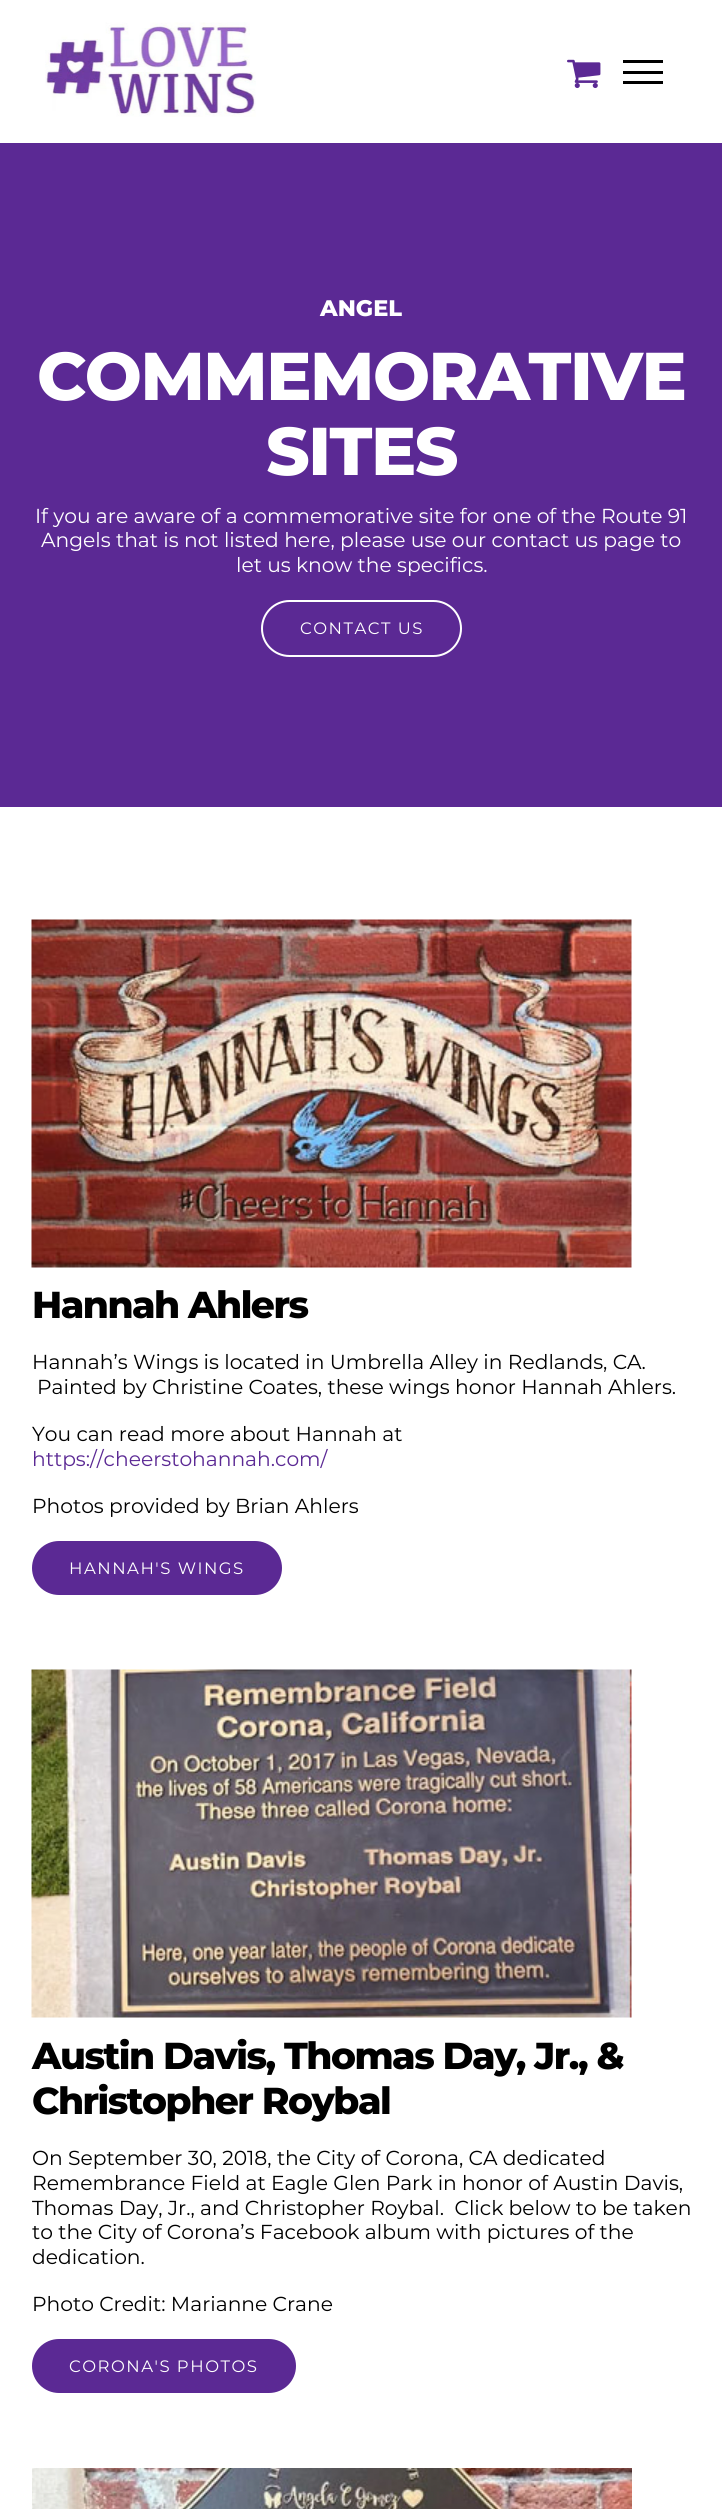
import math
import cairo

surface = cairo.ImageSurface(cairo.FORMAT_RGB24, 722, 2509)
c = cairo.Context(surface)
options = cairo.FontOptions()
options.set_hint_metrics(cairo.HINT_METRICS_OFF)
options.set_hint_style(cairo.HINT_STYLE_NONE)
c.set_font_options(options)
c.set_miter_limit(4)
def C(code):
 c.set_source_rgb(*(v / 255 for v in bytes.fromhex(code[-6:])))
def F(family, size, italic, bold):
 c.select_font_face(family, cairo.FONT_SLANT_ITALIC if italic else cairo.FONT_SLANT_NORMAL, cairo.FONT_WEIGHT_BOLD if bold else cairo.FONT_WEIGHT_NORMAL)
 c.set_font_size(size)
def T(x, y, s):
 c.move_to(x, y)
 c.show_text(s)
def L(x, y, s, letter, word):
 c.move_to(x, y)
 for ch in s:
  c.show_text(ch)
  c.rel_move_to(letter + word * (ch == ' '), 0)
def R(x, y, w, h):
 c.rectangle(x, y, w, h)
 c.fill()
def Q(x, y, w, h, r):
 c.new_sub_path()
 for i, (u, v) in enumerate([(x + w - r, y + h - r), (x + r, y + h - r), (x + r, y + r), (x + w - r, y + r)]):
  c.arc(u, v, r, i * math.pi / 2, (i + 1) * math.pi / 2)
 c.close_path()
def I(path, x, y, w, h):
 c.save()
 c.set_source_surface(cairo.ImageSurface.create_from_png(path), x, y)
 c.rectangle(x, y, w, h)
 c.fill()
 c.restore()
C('ffffff')
c.paint()
I('1.png',45,22,211,95)
I('2.png',567,59,34,30)
C('000000')
R(623,60,40,3)
R(623,71,40,3)
R(623,81,40,3)
C('5b2994')
R(0,143,722,664)
F('Montserrat ExtraBold',22.5,0,0)
C('ffffff')
T(320,316,'ANGEL')
F('Montserrat ExtraBold',67.5,0,0)
L(37,400,'COMMEMORATIVE',-1.5,0)
L(266,475,'SITES',-1.5,0)
F('Montserrat',20.25,0,0)
T(35,523,'If you are aware of a commemorative site for one of the Route 91')
T(41,547,'Angels that is not listed here, please use our contact us page to')
T(236,572,'let us know the specifics.')
Q(262,601,199,55,27.5)
c.stroke()
F('Montserrat',16.5,0,0)
L(300,634,'CONTACT US',1.5,0)
I('3.png',31,919,601,349)
F('Montserrat ExtraBold',37.5,0,0)
C('000000')
L(32,1318,'Hannah Ahlers',-1.5,0)
F('Montserrat',20.25,0,0)
T(32,1369,'Hannah’s Wings is located in Umbrella Alley in Redlands, CA.')
T(37,1394,'Painted by Christine Coates, these wings honor Hannah Ahlers.')
T(32,1441,'You can read more about Hannah at')
C('5b2994')
T(32,1466,'https://cheerstohannah.com/')
C('000000')
T(32,1513,'Photos provided by Brian Ahlers')
C('5b2994')
Q(32,1541,250,54,27)
c.fill()
F('Montserrat',16.5,0,0)
C('ffffff')
L(69,1574,'HANNAH\'S WINGS',1.5,0)
I('4.png',31,1669,601,349)
F('Montserrat ExtraBold',37.5,0,0)
C('000000')
L(32,2069,'Austin Davis, Thomas Day, Jr., &',-1.5,0)
L(32,2114,'Christopher Roybal',-1.5,0)
F('Montserrat',20.25,0,0)
T(32,2165,'On September 30, 2018, the City of Corona, CA dedicated')
T(32,2190,'Remembrance Field at Eagle Glen Park in honor of Austin Davis,')
T(32,2215,'Thomas Day, Jr., and Christopher Roybal.  Click below to be taken')
T(32,2239,'to the City of Corona’s Facebook album with pictures of the')
T(32,2264,'dedication.')
T(32,2311,'Photo Credit: Marianne Crane')
C('5b2994')
Q(32,2339,264,54,27)
c.fill()
F('Montserrat',16.5,0,0)
C('ffffff')
L(69,2372,'CORONA\'S PHOTOS',1.5,0)
I('5.png',32,2468,600,41)
surface.write_to_png('o.png')
